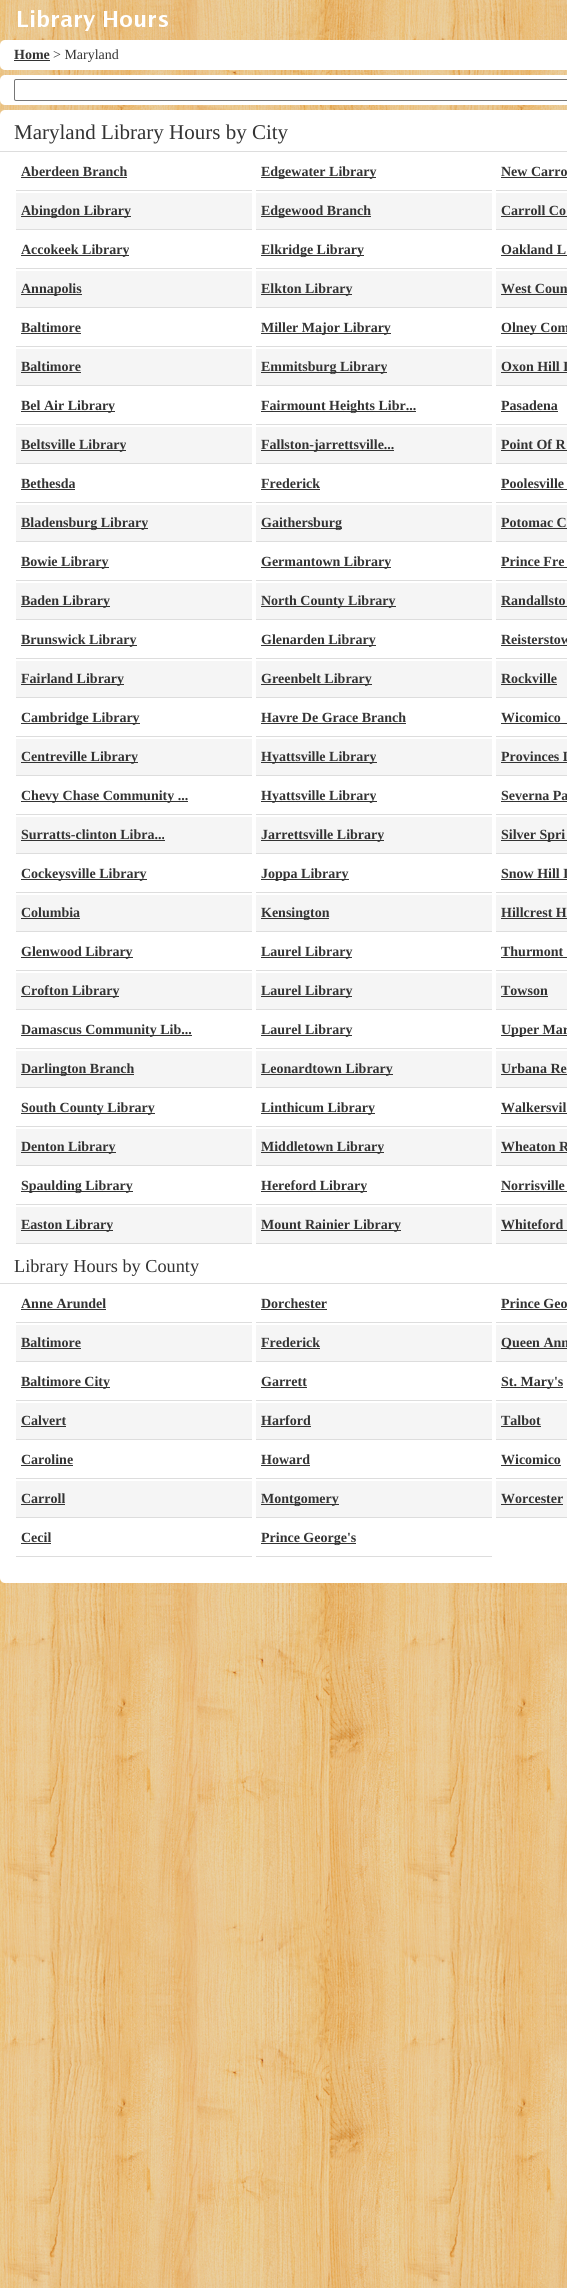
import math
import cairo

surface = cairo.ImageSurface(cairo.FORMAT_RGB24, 567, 2288)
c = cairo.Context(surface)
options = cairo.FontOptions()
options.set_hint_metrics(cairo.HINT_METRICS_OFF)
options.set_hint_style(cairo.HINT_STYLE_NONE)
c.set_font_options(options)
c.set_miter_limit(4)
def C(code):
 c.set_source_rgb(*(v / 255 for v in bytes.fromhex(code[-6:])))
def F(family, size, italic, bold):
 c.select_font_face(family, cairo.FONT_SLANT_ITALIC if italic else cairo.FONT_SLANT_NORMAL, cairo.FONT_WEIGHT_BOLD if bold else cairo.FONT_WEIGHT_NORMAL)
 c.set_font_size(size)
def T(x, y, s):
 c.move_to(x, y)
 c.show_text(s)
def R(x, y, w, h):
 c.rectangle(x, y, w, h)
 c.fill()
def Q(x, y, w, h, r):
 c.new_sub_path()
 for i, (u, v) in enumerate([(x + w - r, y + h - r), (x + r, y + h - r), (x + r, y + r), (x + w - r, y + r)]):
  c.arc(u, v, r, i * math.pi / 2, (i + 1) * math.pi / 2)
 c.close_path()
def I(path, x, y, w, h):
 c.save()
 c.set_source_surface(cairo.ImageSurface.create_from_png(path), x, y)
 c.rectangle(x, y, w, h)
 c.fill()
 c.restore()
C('ffffff')
c.paint()
I('1.png',0,0,567,2288)
I('2.png',18,10,150,21)
C('ffffff')
Q(0,40,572,30,5)
c.fill()
F('Liberation Serif',14,0,1)
C('333333')
T(14,59,'Home')
R(14,60,36,1)
F('Liberation Serif',14,0,0)
T(53,59,'> Maryland')
C('ffffff')
Q(0,75,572,30,5)
c.fill()
Q(14.5,79.5,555,21,1.5)
C('767676')
c.set_line_width(1)
c.stroke()
C('ffffff')
Q(0,110,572,1473,5)
c.fill()
C('dddddd')
R(0,151,567,1)
F('Liberation Serif',21,0,0)
C('333333')
T(14,139,'Maryland Library Hours by City')
C('dddddd')
R(16,190,236,1)
F('Liberation Serif',14,0,1)
C('333333')
T(21,176,'Aberdeen Branch')
R(21,177,106,1)
C('f5f5f5')
R(16,193,236,36)
C('dddddd')
R(16,229,236,1)
C('333333')
R(21,216,110,1)
T(21,215,'Abingdon Library')
C('dddddd')
R(16,268,236,1)
C('333333')
R(21,255,108,1)
T(21,254,'Accokeek Library')
C('f5f5f5')
R(16,271,236,36)
C('dddddd')
R(16,307,236,1)
C('333333')
R(21,294,61,1)
T(21,293,'Annapolis')
C('dddddd')
R(16,346,236,1)
C('333333')
T(21,332,'Baltimore')
R(21,333,60,1)
C('f5f5f5')
R(16,349,236,36)
C('dddddd')
R(16,385,236,1)
C('333333')
T(21,371,'Baltimore')
R(21,372,60,1)
C('dddddd')
R(16,424,236,1)
C('333333')
R(21,411,94,1)
T(21,410,'Bel Air Library')
C('f5f5f5')
R(16,427,236,36)
C('dddddd')
R(16,463,236,1)
C('333333')
R(21,450,105,1)
T(21,449,'Beltsville Library')
C('dddddd')
R(16,502,236,1)
C('333333')
T(21,488,'Bethesda')
R(21,489,54,1)
C('f5f5f5')
R(16,505,236,36)
C('dddddd')
R(16,541,236,1)
C('333333')
R(21,528,127,1)
T(21,527,'Bladensburg Library')
C('dddddd')
R(16,580,236,1)
C('333333')
R(21,567,88,1)
T(21,566,'Bowie Library')
C('f5f5f5')
R(16,583,236,36)
C('dddddd')
R(16,619,236,1)
C('333333')
R(21,606,89,1)
T(21,605,'Baden Library')
C('dddddd')
R(16,658,236,1)
C('333333')
R(21,645,116,1)
T(21,644,'Brunswick Library')
C('f5f5f5')
R(16,661,236,36)
C('dddddd')
R(16,697,236,1)
C('333333')
R(21,684,103,1)
T(21,683,'Fairland Library')
C('dddddd')
R(16,736,236,1)
C('333333')
R(21,723,119,1)
T(21,722,'Cambridge Library')
C('f5f5f5')
R(16,739,236,36)
C('dddddd')
R(16,775,236,1)
C('333333')
R(21,762,117,1)
T(21,761,'Centreville Library')
C('dddddd')
R(16,814,236,1)
C('333333')
R(21,801,167,1)
T(21,800,'Chevy Chase Community ...')
C('f5f5f5')
R(16,817,236,36)
C('dddddd')
R(16,853,236,1)
C('333333')
T(21,839,'Surratts-clinton Libra...')
R(21,840,144,1)
C('dddddd')
R(16,892,236,1)
C('333333')
R(21,879,126,1)
T(21,878,'Cockeysville Library')
C('f5f5f5')
R(16,895,236,36)
C('dddddd')
R(16,931,236,1)
C('333333')
T(21,917,'Columbia')
R(21,918,59,1)
C('dddddd')
R(16,970,236,1)
C('333333')
R(21,957,112,1)
T(21,956,'Glenwood Library')
C('f5f5f5')
R(16,973,236,36)
C('dddddd')
R(16,1009,236,1)
C('333333')
R(21,996,98,1)
T(21,995,'Crofton Library')
C('dddddd')
R(16,1048,236,1)
C('333333')
R(21,1035,171,1)
T(21,1034,'Damascus Community Lib...')
C('f5f5f5')
R(16,1051,236,36)
C('dddddd')
R(16,1087,236,1)
C('333333')
R(21,1074,113,1)
T(21,1073,'Darlington Branch')
C('dddddd')
R(16,1126,236,1)
C('333333')
R(21,1113,134,1)
T(21,1112,'South County Library')
C('f5f5f5')
R(16,1129,236,36)
C('dddddd')
R(16,1165,236,1)
C('333333')
R(21,1152,95,1)
T(21,1151,'Denton Library')
C('dddddd')
R(16,1204,236,1)
C('333333')
R(21,1191,112,1)
T(21,1190,'Spaulding Library')
C('f5f5f5')
R(16,1207,236,36)
C('dddddd')
R(16,1243,236,1)
C('333333')
R(21,1230,92,1)
T(21,1229,'Easton Library')
C('dddddd')
R(256,190,236,1)
C('333333')
R(261,177,115,1)
T(261,176,'Edgewater Library')
C('f5f5f5')
R(256,193,236,36)
C('dddddd')
R(256,229,236,1)
C('333333')
R(261,216,110,1)
T(261,215,'Edgewood Branch')
C('dddddd')
R(256,268,236,1)
C('333333')
R(261,255,103,1)
T(261,254,'Elkridge Library')
C('f5f5f5')
R(256,271,236,36)
C('dddddd')
R(256,307,236,1)
C('333333')
R(261,294,91,1)
T(261,293,'Elkton Library')
C('dddddd')
R(256,346,236,1)
C('333333')
R(261,333,130,1)
T(261,332,'Miller Major Library')
C('f5f5f5')
R(256,349,236,36)
C('dddddd')
R(256,385,236,1)
C('333333')
R(261,372,126,1)
T(261,371,'Emmitsburg Library')
C('dddddd')
R(256,424,236,1)
C('333333')
R(261,411,155,1)
T(261,410,'Fairmount Heights Libr...')
C('f5f5f5')
R(256,427,236,36)
C('dddddd')
R(256,463,236,1)
C('333333')
R(261,450,133,1)
T(261,449,'Fallston-jarrettsville...')
C('dddddd')
R(256,502,236,1)
C('333333')
T(261,488,'Frederick')
R(261,489,59,1)
C('f5f5f5')
R(256,505,236,36)
C('dddddd')
R(256,541,236,1)
C('333333')
R(261,528,81,1)
T(261,527,'Gaithersburg')
C('dddddd')
R(256,580,236,1)
C('333333')
R(261,567,130,1)
T(261,566,'Germantown Library')
C('f5f5f5')
R(256,583,236,36)
C('dddddd')
R(256,619,236,1)
C('333333')
R(261,606,135,1)
T(261,605,'North County Library')
C('dddddd')
R(256,658,236,1)
C('333333')
R(261,645,115,1)
T(261,644,'Glenarden Library')
C('f5f5f5')
R(256,661,236,36)
C('dddddd')
R(256,697,236,1)
C('333333')
R(261,684,111,1)
T(261,683,'Greenbelt Library')
C('dddddd')
R(256,736,236,1)
C('333333')
T(261,722,'Havre De Grace Branch')
R(261,723,145,1)
C('f5f5f5')
R(256,739,236,36)
C('dddddd')
R(256,775,236,1)
C('333333')
R(261,762,116,1)
T(261,761,'Hyattsville Library')
C('dddddd')
R(256,814,236,1)
C('333333')
R(261,801,116,1)
T(261,800,'Hyattsville Library')
C('f5f5f5')
R(256,817,236,36)
C('dddddd')
R(256,853,236,1)
C('333333')
R(261,840,123,1)
T(261,839,'Jarrettsville Library')
C('dddddd')
R(256,892,236,1)
C('333333')
R(261,879,88,1)
T(261,878,'Joppa Library')
C('f5f5f5')
R(256,895,236,36)
C('dddddd')
R(256,931,236,1)
C('333333')
R(261,918,68,1)
T(261,917,'Kensington')
C('dddddd')
R(256,970,236,1)
C('333333')
R(261,957,91,1)
T(261,956,'Laurel Library')
C('f5f5f5')
R(256,973,236,36)
C('dddddd')
R(256,1009,236,1)
C('333333')
R(261,996,91,1)
T(261,995,'Laurel Library')
C('dddddd')
R(256,1048,236,1)
C('333333')
R(261,1035,91,1)
T(261,1034,'Laurel Library')
C('f5f5f5')
R(256,1051,236,36)
C('dddddd')
R(256,1087,236,1)
C('333333')
R(261,1074,132,1)
T(261,1073,'Leonardtown Library')
C('dddddd')
R(256,1126,236,1)
C('333333')
R(261,1113,114,1)
T(261,1112,'Linthicum Library')
C('f5f5f5')
R(256,1129,236,36)
C('dddddd')
R(256,1165,236,1)
C('333333')
R(261,1152,123,1)
T(261,1151,'Middletown Library')
C('dddddd')
R(256,1204,236,1)
C('333333')
R(261,1191,106,1)
T(261,1190,'Hereford Library')
C('f5f5f5')
R(256,1207,236,36)
C('dddddd')
R(256,1243,236,1)
C('333333')
R(261,1230,140,1)
T(261,1229,'Mount Rainier Library')
C('dddddd')
R(496,190,71,1)
C('333333')
T(501,176,'New Carro')
R(501,177,66,1)
C('f5f5f5')
R(496,193,71,36)
C('dddddd')
R(496,229,71,1)
C('333333')
T(501,215,'Carroll Co')
R(501,216,66,1)
C('dddddd')
R(496,268,71,1)
C('333333')
T(501,254,'Oakland L')
R(501,255,66,1)
C('f5f5f5')
R(496,271,71,36)
C('dddddd')
R(496,307,71,1)
C('333333')
T(501,293,'West Coun')
R(501,294,66,1)
C('dddddd')
R(496,346,71,1)
C('333333')
R(501,333,66,1)
T(501,332,'Olney Com')
C('f5f5f5')
R(496,349,71,36)
C('dddddd')
R(496,385,71,1)
C('333333')
T(501,371,'Oxon Hill L')
R(501,372,66,1)
C('dddddd')
R(496,424,71,1)
C('333333')
T(501,410,'Pasadena')
R(501,411,57,1)
C('f5f5f5')
R(496,427,71,36)
C('dddddd')
R(496,463,71,1)
C('333333')
T(501,449,'Point Of R')
R(501,450,66,1)
C('dddddd')
R(496,502,71,1)
C('333333')
T(501,488,'Poolesville')
R(501,489,66,1)
C('f5f5f5')
R(496,505,71,36)
C('dddddd')
R(496,541,71,1)
C('333333')
T(501,527,'Potomac C')
R(501,528,66,1)
C('dddddd')
R(496,580,71,1)
C('333333')
T(501,566,'Prince Fre')
R(501,567,66,1)
C('f5f5f5')
R(496,583,71,36)
C('dddddd')
R(496,619,71,1)
C('333333')
T(501,605,'Randallsto')
R(501,606,66,1)
C('dddddd')
R(496,658,71,1)
C('333333')
T(501,644,'Reisterstow')
R(501,645,66,1)
C('f5f5f5')
R(496,661,71,36)
C('dddddd')
R(496,697,71,1)
C('333333')
T(501,683,'Rockville')
R(501,684,56,1)
C('dddddd')
R(496,736,71,1)
C('333333')
T(501,722,'Wicomico')
R(501,723,66,1)
C('f5f5f5')
R(496,739,71,36)
C('dddddd')
R(496,775,71,1)
C('333333')
T(501,761,'Provinces L')
R(501,762,66,1)
C('dddddd')
R(496,814,71,1)
C('333333')
T(501,800,'Severna Pa')
R(501,801,66,1)
C('f5f5f5')
R(496,817,71,36)
C('dddddd')
R(496,853,71,1)
C('333333')
R(501,840,66,1)
T(501,839,'Silver Spri')
C('dddddd')
R(496,892,71,1)
C('333333')
T(501,878,'Snow Hill L')
R(501,879,66,1)
C('f5f5f5')
R(496,895,71,36)
C('dddddd')
R(496,931,71,1)
C('333333')
T(501,917,'Hillcrest H')
R(501,918,66,1)
C('dddddd')
R(496,970,71,1)
C('333333')
T(501,956,'Thurmont')
R(501,957,66,1)
C('f5f5f5')
R(496,973,71,36)
C('dddddd')
R(496,1009,71,1)
C('333333')
T(501,995,'Towson')
R(501,996,47,1)
C('dddddd')
R(496,1048,71,1)
C('333333')
R(501,1035,66,1)
T(501,1034,'Upper Mar')
C('f5f5f5')
R(496,1051,71,36)
C('dddddd')
R(496,1087,71,1)
C('333333')
T(501,1073,'Urbana Re')
R(501,1074,66,1)
C('dddddd')
R(496,1126,71,1)
C('333333')
T(501,1112,'Walkersvil')
R(501,1113,66,1)
C('f5f5f5')
R(496,1129,71,36)
C('dddddd')
R(496,1165,71,1)
C('333333')
T(501,1151,'Wheaton R')
R(501,1152,66,1)
C('dddddd')
R(496,1204,71,1)
C('333333')
T(501,1190,'Norrisville')
R(501,1191,66,1)
C('f5f5f5')
R(496,1207,71,36)
C('dddddd')
R(496,1243,71,1)
C('333333')
T(501,1229,'Whiteford')
R(501,1230,66,1)
C('dddddd')
R(0,1283,567,1)
F('Liberation Serif',18.25,0,0)
C('333333')
T(14,1272,'Library Hours by County')
C('dddddd')
R(16,1322,236,1)
F('Liberation Serif',14,0,1)
C('333333')
T(21,1308,'Anne Arundel')
R(21,1309,85,1)
C('f5f5f5')
R(16,1325,236,36)
C('dddddd')
R(16,1361,236,1)
C('333333')
T(21,1347,'Baltimore')
R(21,1348,60,1)
C('dddddd')
R(16,1400,236,1)
C('333333')
R(21,1387,89,1)
T(21,1386,'Baltimore City')
C('f5f5f5')
R(16,1403,236,36)
C('dddddd')
R(16,1439,236,1)
C('333333')
T(21,1425,'Calvert')
R(21,1426,45,1)
C('dddddd')
R(16,1478,236,1)
C('333333')
T(21,1464,'Caroline')
R(21,1465,52,1)
C('f5f5f5')
R(16,1481,236,36)
C('dddddd')
R(16,1517,236,1)
C('333333')
T(21,1503,'Carroll')
R(21,1504,44,1)
C('dddddd')
R(16,1556,236,1)
C('333333')
T(21,1542,'Cecil')
R(21,1543,30,1)
C('dddddd')
R(256,1322,236,1)
C('333333')
T(261,1308,'Dorchester')
R(261,1309,66,1)
C('f5f5f5')
R(256,1325,236,36)
C('dddddd')
R(256,1361,236,1)
C('333333')
T(261,1347,'Frederick')
R(261,1348,59,1)
C('dddddd')
R(256,1400,236,1)
C('333333')
T(261,1386,'Garrett')
R(261,1387,46,1)
C('f5f5f5')
R(256,1403,236,36)
C('dddddd')
R(256,1439,236,1)
C('333333')
T(261,1425,'Harford')
R(261,1426,50,1)
C('dddddd')
R(256,1478,236,1)
C('333333')
T(261,1464,'Howard')
R(261,1465,49,1)
C('f5f5f5')
R(256,1481,236,36)
C('dddddd')
R(256,1517,236,1)
C('333333')
R(261,1504,78,1)
T(261,1503,'Montgomery')
C('dddddd')
R(256,1556,236,1)
C('333333')
R(261,1543,95,1)
T(261,1542,'Prince George\'s')
C('dddddd')
R(496,1322,71,1)
C('333333')
T(501,1308,'Prince Geo')
R(501,1309,66,1)
C('f5f5f5')
R(496,1325,71,36)
C('dddddd')
R(496,1361,71,1)
C('333333')
R(501,1348,66,1)
T(501,1347,'Queen Ann')
C('dddddd')
R(496,1400,71,1)
C('333333')
R(501,1387,62,1)
T(501,1386,'St. Mary\'s')
C('f5f5f5')
R(496,1403,71,36)
C('dddddd')
R(496,1439,71,1)
C('333333')
T(501,1425,'Talbot')
R(501,1426,40,1)
C('dddddd')
R(496,1478,71,1)
C('333333')
T(501,1464,'Wicomico')
R(501,1465,60,1)
C('f5f5f5')
R(496,1481,71,36)
C('dddddd')
R(496,1517,71,1)
C('333333')
T(501,1503,'Worcester')
R(501,1504,62,1)
surface.write_to_png('o.png')
